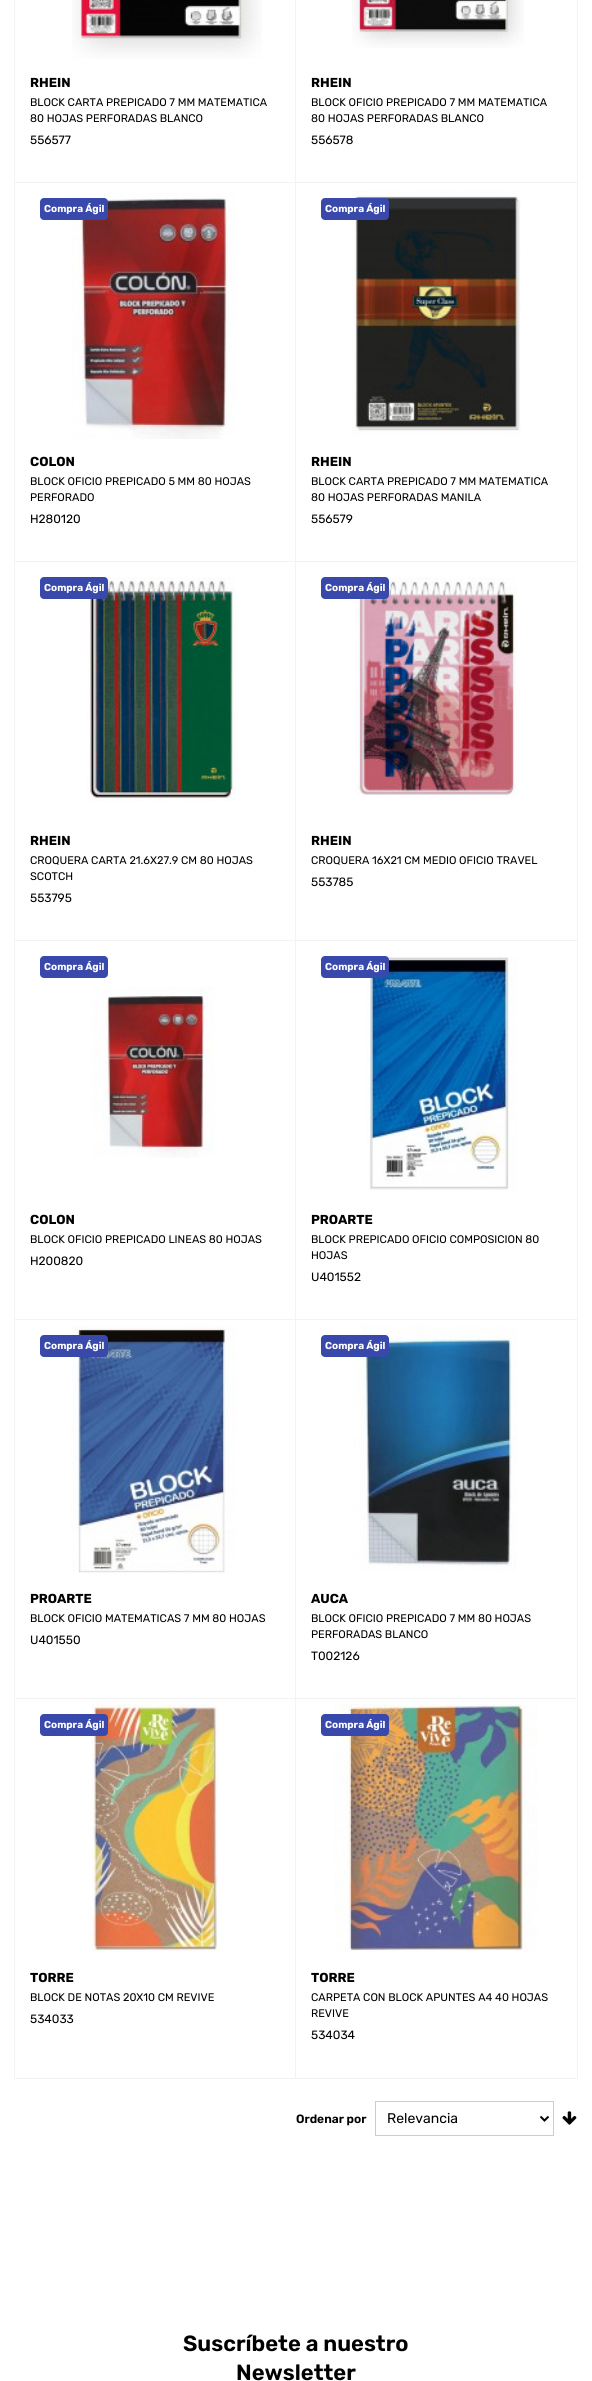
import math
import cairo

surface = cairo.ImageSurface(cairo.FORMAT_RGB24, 592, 2381)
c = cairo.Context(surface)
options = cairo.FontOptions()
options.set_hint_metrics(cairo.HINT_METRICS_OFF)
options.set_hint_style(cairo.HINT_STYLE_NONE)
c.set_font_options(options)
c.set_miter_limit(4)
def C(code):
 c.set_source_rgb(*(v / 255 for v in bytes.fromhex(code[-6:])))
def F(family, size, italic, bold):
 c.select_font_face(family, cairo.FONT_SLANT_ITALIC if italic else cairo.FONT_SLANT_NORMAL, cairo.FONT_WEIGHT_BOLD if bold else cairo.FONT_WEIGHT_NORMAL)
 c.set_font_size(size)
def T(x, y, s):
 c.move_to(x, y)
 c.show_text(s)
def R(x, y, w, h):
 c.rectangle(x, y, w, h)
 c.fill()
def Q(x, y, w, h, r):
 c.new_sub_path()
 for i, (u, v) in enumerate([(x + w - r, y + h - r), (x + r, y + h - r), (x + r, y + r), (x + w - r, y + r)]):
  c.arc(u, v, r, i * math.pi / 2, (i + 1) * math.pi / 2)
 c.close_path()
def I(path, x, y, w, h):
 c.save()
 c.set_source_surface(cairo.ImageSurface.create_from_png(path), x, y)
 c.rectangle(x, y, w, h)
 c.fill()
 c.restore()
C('ffffff')
c.paint()
c.rectangle(14.5,-.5,282,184)
C('f3f3f3')
c.set_line_width(1)
c.stroke()
I('1.png',72,0,190,59)
F('Rubik',13,0,1)
C('000000')
T(30,87,'RHEIN')
F('Rubik',11,0,0)
T(30,106,'BLOCK CARTA PREPICADO 7 MM MATEMATICA')
T(30,122,'80 HOJAS PERFORADAS BLANCO')
F('Rubik',12,0,0)
T(30,144,'556577')
C('ffffff')
R(296,0,1,182)
c.rectangle(295.5,-.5,282,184)
C('f3f3f3')
c.stroke()
I('2.png',352,0,172,48)
F('Rubik',13,0,1)
C('000000')
T(311,87,'RHEIN')
F('Rubik',11,0,0)
T(311,106,'BLOCK OFICIO PREPICADO 7 MM MATEMATICA')
T(311,122,'80 HOJAS PERFORADAS BLANCO')
F('Rubik',12,0,0)
T(311,144,'556578')
C('ffffff')
R(15,183,280,1)
c.rectangle(14.5,182.5,282,380)
C('f3f3f3')
c.stroke()
I('3.png',72,193,164,246)
C('3949ab')
Q(40,198,68,22,4)
c.fill()
F('Rubik',10,0,1)
C('ffffff')
T(44,212,'Compra Ágil')
F('Rubik',13,0,1)
C('000000')
T(30,466,'COLON')
F('Rubik',11,0,0)
T(30,485,'BLOCK OFICIO PREPICADO 5 MM 80 HOJAS')
T(30,501,'PERFORADO')
F('Rubik',12,0,0)
T(30,523,'H280120')
C('ffffff')
R(296,183,281,378)
c.rectangle(295.5,182.5,282,380)
C('f3f3f3')
c.stroke()
I('4.png',352,191,169,244)
C('3949ab')
Q(321,198,68,22,4)
c.fill()
F('Rubik',10,0,1)
C('ffffff')
T(325,212,'Compra Ágil')
F('Rubik',13,0,1)
C('000000')
T(311,466,'RHEIN')
F('Rubik',11,0,0)
T(311,485,'BLOCK CARTA PREPICADO 7 MM MATEMATICA')
T(311,501,'80 HOJAS PERFORADAS MANILA')
F('Rubik',12,0,0)
T(311,523,'556579')
C('ffffff')
R(15,562,280,1)
c.rectangle(14.5,561.5,282,380)
C('f3f3f3')
c.stroke()
I('5.png',87,577,149,225)
C('3949ab')
Q(40,577,68,22,4)
c.fill()
F('Rubik',10,0,1)
C('ffffff')
T(44,591,'Compra Ágil')
F('Rubik',13,0,1)
C('000000')
T(30,845,'RHEIN')
F('Rubik',11,0,0)
T(30,864,'CROQUERA CARTA 21.6X27.9 CM 80 HOJAS')
T(30,880,'SCOTCH')
F('Rubik',12,0,0)
T(30,902,'553795')
C('ffffff')
R(296,562,281,378)
c.rectangle(295.5,561.5,282,380)
C('f3f3f3')
c.stroke()
I('6.png',355,577,162,220)
C('3949ab')
Q(321,577,68,22,4)
c.fill()
F('Rubik',10,0,1)
C('ffffff')
T(325,591,'Compra Ágil')
F('Rubik',13,0,1)
C('000000')
T(311,845,'RHEIN')
F('Rubik',11,0,0)
T(311,864,'CROQUERA 16X21 CM MEDIO OFICIO TRAVEL')
F('Rubik',12,0,0)
T(311,886,'553785')
C('ffffff')
R(15,941,280,1)
c.rectangle(14.5,940.5,282,380)
C('f3f3f3')
c.stroke()
C('3949ab')
Q(40,956,68,22,4)
c.fill()
F('Rubik',10,0,1)
C('ffffff')
T(44,970,'Compra Ágil')
I('7.png',92,987,123,171)
F('Rubik',13,0,1)
C('000000')
T(30,1224,'COLON')
F('Rubik',11,0,0)
T(30,1243,'BLOCK OFICIO PREPICADO LINEAS 80 HOJAS')
F('Rubik',12,0,0)
T(30,1265,'H200820')
C('ffffff')
R(296,941,281,378)
c.rectangle(295.5,940.5,282,380)
C('f3f3f3')
c.stroke()
I('8.png',366,956,151,234)
C('3949ab')
Q(321,956,68,22,4)
c.fill()
F('Rubik',10,0,1)
C('ffffff')
T(325,970,'Compra Ágil')
F('Rubik',13,0,1)
C('000000')
T(311,1224,'PROARTE')
F('Rubik',11,0,0)
T(311,1243,'BLOCK PREPICADO OFICIO COMPOSICION 80')
T(311,1259,'HOJAS')
F('Rubik',12,0,0)
T(311,1281,'U401552')
C('ffffff')
R(15,1320,280,1)
c.rectangle(14.5,1319.5,282,380)
C('f3f3f3')
c.stroke()
I('9.png',71,1325,165,248)
C('3949ab')
Q(40,1335,68,22,4)
c.fill()
F('Rubik',10,0,1)
C('ffffff')
T(44,1349,'Compra Ágil')
F('Rubik',13,0,1)
C('000000')
T(30,1603,'PROARTE')
F('Rubik',11,0,0)
T(30,1622,'BLOCK OFICIO MATEMATICAS 7 MM 80 HOJAS')
F('Rubik',12,0,0)
T(30,1644,'U401550')
C('ffffff')
R(296,1320,281,378)
c.rectangle(295.5,1319.5,282,380)
C('f3f3f3')
c.stroke()
I('10.png',353,1325,164,247)
C('3949ab')
Q(321,1335,68,22,4)
c.fill()
F('Rubik',10,0,1)
C('ffffff')
T(325,1349,'Compra Ágil')
F('Rubik',13,0,1)
C('000000')
T(311,1603,'AUCA')
F('Rubik',11,0,0)
T(311,1622,'BLOCK OFICIO PREPICADO 7 MM 80 HOJAS')
T(311,1638,'PERFORADAS BLANCO')
F('Rubik',12,0,0)
T(311,1660,'T002126')
C('ffffff')
R(15,1699,280,1)
c.rectangle(14.5,1698.5,282,380)
C('f3f3f3')
c.stroke()
I('11.png',91,1704,128,248)
C('3949ab')
Q(40,1714,68,22,4)
c.fill()
F('Rubik',10,0,1)
C('ffffff')
T(44,1728,'Compra Ágil')
F('Rubik',13,0,1)
C('000000')
T(30,1982,'TORRE')
F('Rubik',11,0,0)
T(30,2001,'BLOCK DE NOTAS 20X10 CM REVIVE')
F('Rubik',12,0,0)
T(30,2023,'534033')
C('ffffff')
c.rectangle(295.5,1698.5,282,380)
c.fill_preserve()
C('f3f3f3')
c.stroke()
I('12.png',334,1704,204,248)
C('3949ab')
Q(321,1714,68,22,4)
c.fill()
F('Rubik',10,0,1)
C('ffffff')
T(325,1728,'Compra Ágil')
F('Rubik',13,0,1)
C('000000')
T(311,1982,'TORRE')
F('Rubik',11,0,0)
T(311,2001,'CARPETA CON BLOCK APUNTES A4 40 HOJAS')
T(311,2017,'REVIVE')
F('Rubik',12,0,0)
T(311,2039,'534034')
F('Rubik SemiBold',12,0,0)
T(296,2123,'Ordenar por')
c.rectangle(375.5,2101.5,178,34)
C('cccccc')
c.stroke()
c.new_path()
c.move_to(540.5,2116.5)
c.line_to(544.5,2120.5)
c.line_to(548.5,2116.5)
C('000000')
c.set_line_width(2)
c.stroke()
F('Rubik',14,0,0)
T(387,2123,'Relevancia')
I('13.png',562,2111,15,14)
F('Rubik SemiBold',22,0,0)
T(183,2351,'Suscríbete a nuestro')
T(236,2380,'Newsletter')
surface.write_to_png('o.png')
